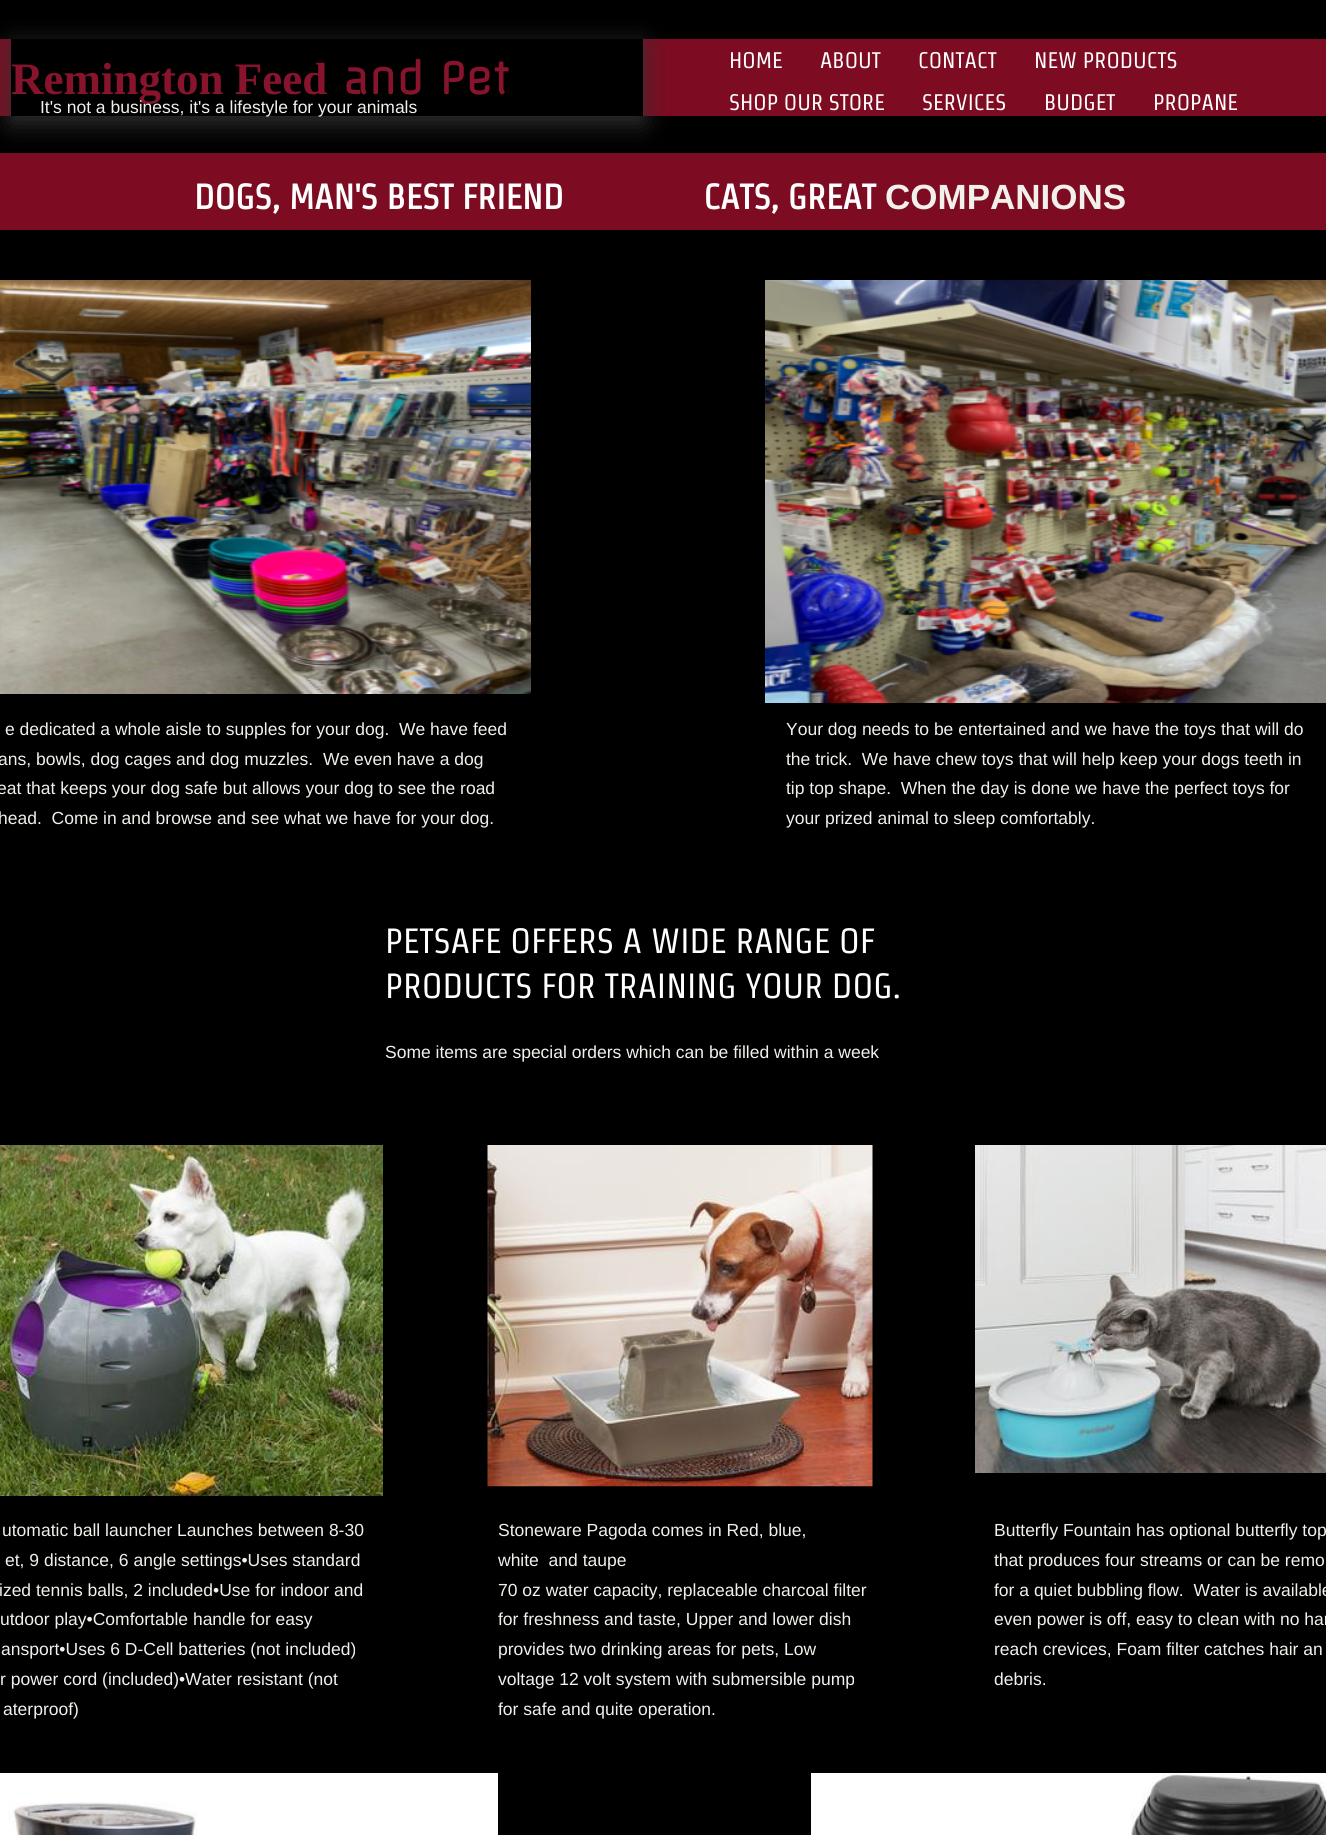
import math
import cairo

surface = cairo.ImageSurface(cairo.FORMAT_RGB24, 1326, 1835)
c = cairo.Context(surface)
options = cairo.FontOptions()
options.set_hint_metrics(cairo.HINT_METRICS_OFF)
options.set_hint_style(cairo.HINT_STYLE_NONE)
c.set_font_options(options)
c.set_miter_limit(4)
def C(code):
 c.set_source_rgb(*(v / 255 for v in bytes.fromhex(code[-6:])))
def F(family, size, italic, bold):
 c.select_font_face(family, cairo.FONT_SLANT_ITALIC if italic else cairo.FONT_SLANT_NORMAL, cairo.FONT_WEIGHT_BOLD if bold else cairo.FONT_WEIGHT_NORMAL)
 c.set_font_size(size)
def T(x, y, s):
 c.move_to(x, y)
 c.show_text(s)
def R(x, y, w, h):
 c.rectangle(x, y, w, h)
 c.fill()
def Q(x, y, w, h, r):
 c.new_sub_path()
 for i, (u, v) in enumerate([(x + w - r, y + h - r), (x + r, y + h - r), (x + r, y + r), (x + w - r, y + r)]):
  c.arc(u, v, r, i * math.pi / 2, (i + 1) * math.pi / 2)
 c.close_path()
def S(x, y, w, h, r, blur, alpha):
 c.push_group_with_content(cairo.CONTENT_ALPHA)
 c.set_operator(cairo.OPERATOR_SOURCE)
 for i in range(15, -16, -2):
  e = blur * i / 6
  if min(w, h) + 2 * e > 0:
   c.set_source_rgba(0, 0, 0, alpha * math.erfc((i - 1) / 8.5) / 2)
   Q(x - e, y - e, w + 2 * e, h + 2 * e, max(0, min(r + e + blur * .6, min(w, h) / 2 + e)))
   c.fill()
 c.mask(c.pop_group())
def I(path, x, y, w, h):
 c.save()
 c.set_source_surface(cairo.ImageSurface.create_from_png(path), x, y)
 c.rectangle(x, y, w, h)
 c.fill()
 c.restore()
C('000000')
c.paint()
C('7d0b22')
R(0,39,1326,77)
R(0,153,1326,77)
C('333333')
S(11,45,632,78,0,12.5,1)
C('000000')
R(11,39,632,77)
F('Liberation Serif',45,0,1)
C('88132d')
T(11,94,'Remington Feed')
F('Offside',42.5,0,1)
T(343,94,'and Pet')
F('Strait',22.5,0,0)
C('ffffff')
T(729,68,'HOME')
T(820,68,'ABOUT')
T(918,68,'CONTACT')
T(1034,68,'NEW PRODUCTS')
T(729,110,'SHOP OUR STORE')
T(922,110,'SERVICES')
T(1044,110,'BUDGET')
T(1153,110,'PROPANE')
F('Liberation Sans',17.5,0,0)
C('f1f0eb')
T(40,113,'It\'s not a business, it\'s a lifestyle for your animals')
F('Strait',35,0,1)
C('ffffff')
T(194,209,'DOGS, MAN\'S BEST FRIEND                CATS, GREAT')
F('Liberation Sans',35,0,1)
C('f1f0eb')
T(885,209,'COMPANIONS')
I('1.png',0,280,531,414)
I('2.png',765,280,561,423)
F('Liberation Sans',17.5,0,0)
T(5,735,'e dedicated a whole aisle to supples for your dog.  We have feed')
T(-2,765,'ans, bowls, dog cages and dog muzzles.  We even have a dog')
T(-3,794,'eat that keeps your dog safe but allows your dog to see the road')
T(-2,824,'head.  Come in and browse and see what we have for your dog.')
T(786,735,'Your dog needs to be entertained and we have the toys that will do')
T(786,765,'the trick.  We have chew toys that will help keep your dogs teeth in')
T(786,794,'tip top shape.  When the day is done we have the perfect toys for')
T(786,824,'your prized animal to sleep comfortably.')
F('Strait',35,0,0)
C('ffffff')
T(385,953,'PETSAFE OFFERS A WIDE RANGE OF')
T(385,998,'PRODUCTS FOR TRAINING YOUR DOG.')
F('Liberation Sans',17.5,0,0)
C('f1f0eb')
T(385,1058,'Some items are special orders which can be filled within a week')
I('3.png',0,1145,383,351)
I('4.png',487,1145,386,342)
I('5.png',975,1145,351,328)
T(2,1536,'utomatic ball launcher Launches between 8-30')
T(5,1566,'et, 9 distance, 6 angle settings•Uses standard')
T(-1,1596,'ized tennis balls, 2 included•Use for indoor and')
T(0,1625,'utdoor play•Comfortable handle for easy')
T(1,1655,'ansport•Uses 6 D-Cell batteries (not included)')
T(0,1685,'r power cord (included)•Water resistant (not')
T(3,1715,'aterproof)')
T(498,1536,'Stoneware Pagoda comes in Red, blue,')
T(498,1566,'white  and taupe')
T(498,1596,'70 oz water capacity, replaceable charcoal filter')
T(498,1625,'for freshness and taste, Upper and lower dish')
T(498,1655,'provides two drinking areas for pets, Low')
T(498,1685,'voltage 12 volt system with submersible pump')
T(498,1715,'for safe and quite operation.')
T(994,1536,'Butterfly Fountain has optional butterfly top')
T(994,1566,'that produces four streams or can be remo')
T(994,1596,'for a quiet bubbling flow.  Water is available')
T(994,1625,'even power is off, easy to clean with no har')
T(994,1655,'reach crevices, Foam filter catches hair an')
T(994,1685,'debris.')
I('6.png',0,1773,498,62)
I('7.png',811,1773,515,62)
surface.write_to_png('o.png')
